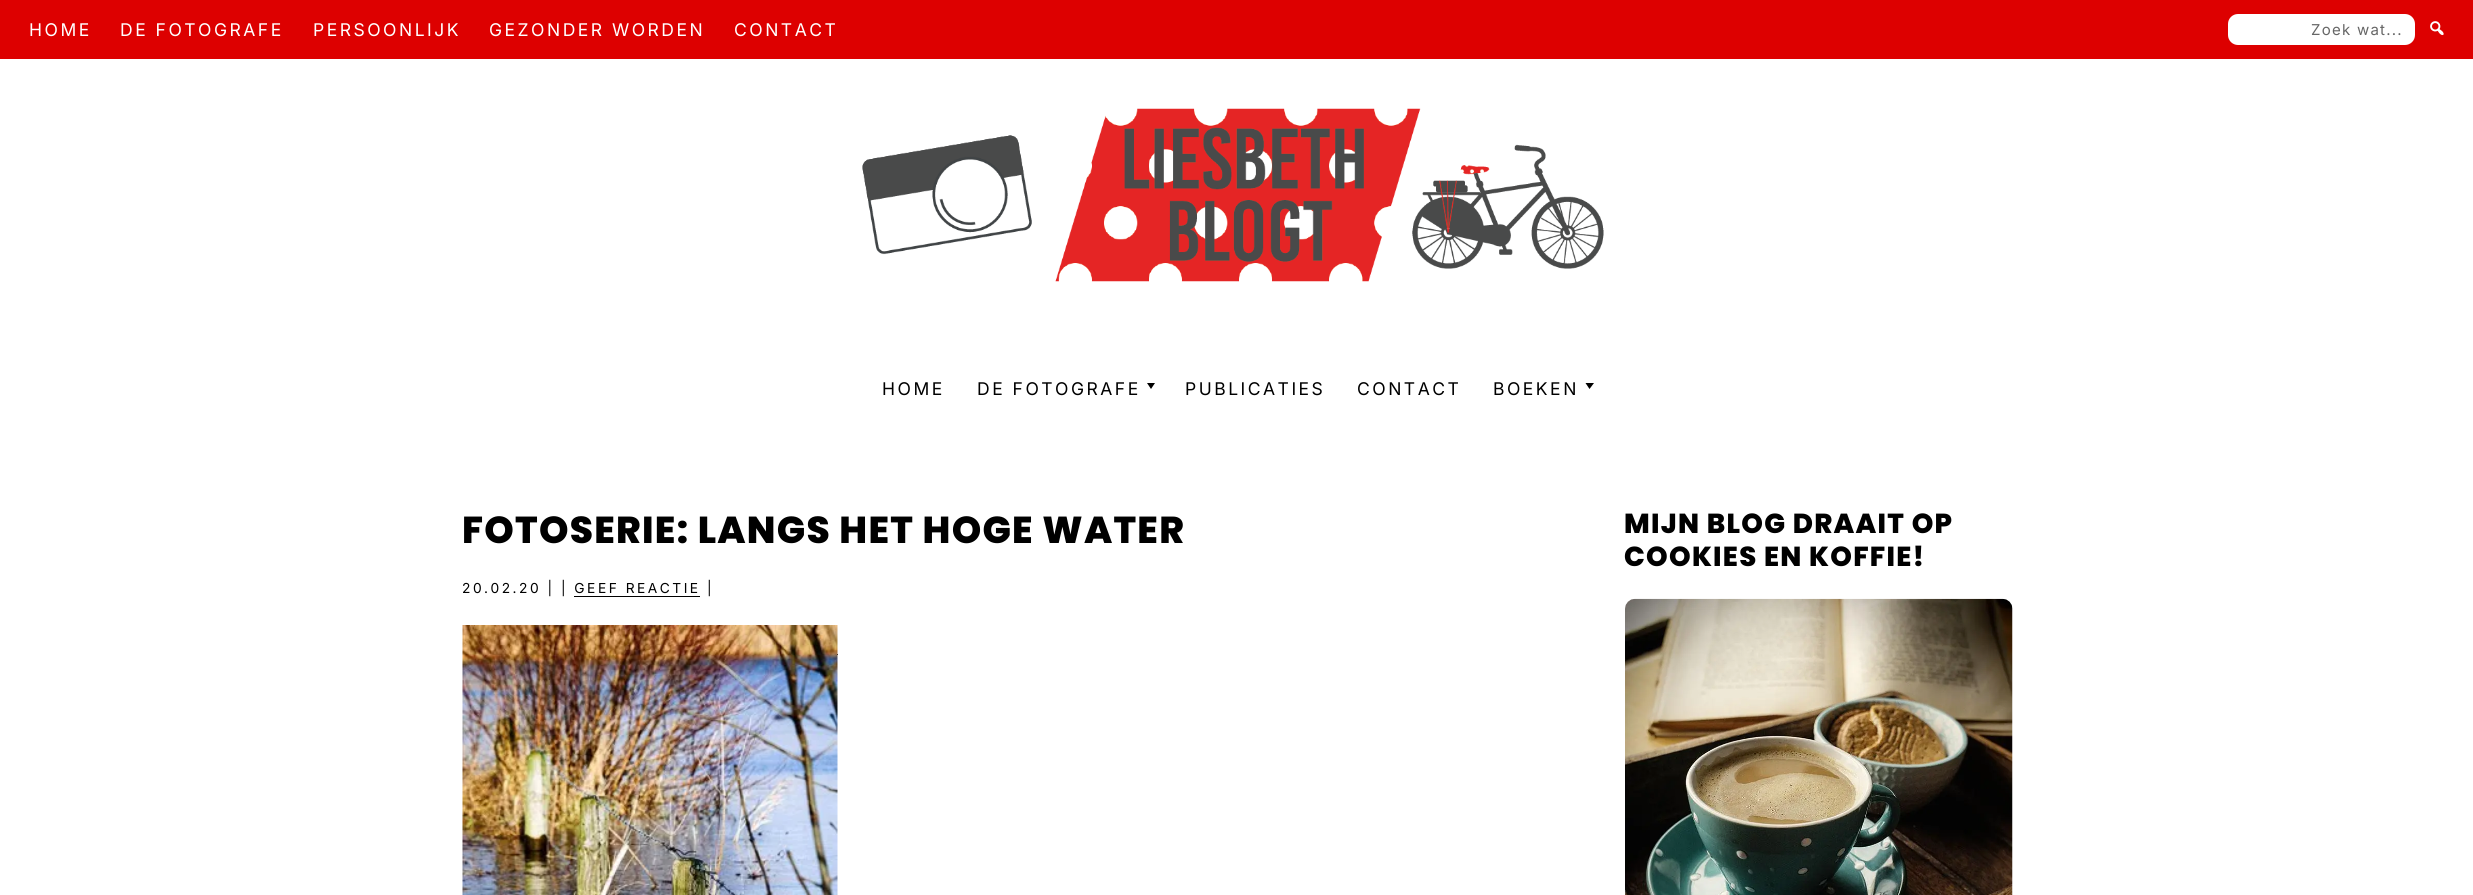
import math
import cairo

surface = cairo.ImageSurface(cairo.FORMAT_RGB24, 2473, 895)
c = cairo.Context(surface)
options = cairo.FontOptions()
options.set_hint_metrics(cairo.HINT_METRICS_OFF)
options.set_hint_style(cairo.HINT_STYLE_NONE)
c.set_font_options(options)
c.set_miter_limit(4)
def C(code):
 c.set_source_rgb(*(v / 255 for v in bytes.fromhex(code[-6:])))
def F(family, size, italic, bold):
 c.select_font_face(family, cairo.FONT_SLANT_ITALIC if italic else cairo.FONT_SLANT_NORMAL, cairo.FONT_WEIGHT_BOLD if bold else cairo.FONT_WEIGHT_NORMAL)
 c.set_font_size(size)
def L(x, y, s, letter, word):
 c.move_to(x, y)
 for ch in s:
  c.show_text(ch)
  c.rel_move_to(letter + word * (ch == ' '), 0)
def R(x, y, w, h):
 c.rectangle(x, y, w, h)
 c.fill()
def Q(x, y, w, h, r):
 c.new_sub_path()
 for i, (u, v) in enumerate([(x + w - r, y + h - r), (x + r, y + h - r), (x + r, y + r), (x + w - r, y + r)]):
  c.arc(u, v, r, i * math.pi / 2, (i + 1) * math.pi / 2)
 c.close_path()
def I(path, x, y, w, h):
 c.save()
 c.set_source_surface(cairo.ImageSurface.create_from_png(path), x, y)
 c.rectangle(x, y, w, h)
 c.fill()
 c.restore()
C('ffffff')
c.paint()
C('dd0000')
R(0,0,2473,59)
F('Inter',17.5,0,0)
C('ffffff')
L(29,36,'HOME',2.5,0)
L(120,36,'DE FOTOGRAFE',2.5,0)
L(313,36,'PERSOONLIJK',2.5,0)
L(489,36,'GEZONDER WORDEN',2.5,0)
L(734,36,'CONTACT',2.5,0)
Q(2228,14,187,31,10)
c.fill()
F('Inter',15,0,0)
C('666666')
L(2311,35,'Zoek wat...',1.25,0)
I('1.png',2430,21,14,15)
I('2.png',862,108,742,174)
F('Inter',17.5,0,0)
C('000000')
L(882,395,'HOME',2.5,0)
L(977,395,'DE FOTOGRAFE',2.5,0)
c.new_path()
c.move_to(1155,383)
c.line_to(1151,389)
c.line_to(1147,383)
c.close_path()
c.fill()
L(1185,395,'PUBLICATIES',2.5,0)
L(1357,395,'CONTACT',2.5,0)
L(1493,395,'BOEKEN',2.5,0)
c.new_path()
c.move_to(1594,383)
c.line_to(1589.5,389)
c.line_to(1585.5,383)
c.close_path()
c.fill()
F('Poppins ExtraBold',37.5,0,0)
L(462,543,'FOTOSERIE: LANGS HET HOGE WATER',1.25,0)
F('Inter',13.75,0,0)
L(462,593,'20.02.20 | | GEEF REACTIE |',2.5,0)
R(574,596,126,1)
R(837,654,1,1)
I('3.png',462,625,376,270)
F('Poppins ExtraBold',27.5,0,0)
L(1624,533,'MIJN BLOG DRAAIT OP',1.25,0)
L(1624,566,'COOKIES EN KOFFIE!',1.25,0)
I('4.png',1625,598,388,297)
surface.write_to_png('o.png')
